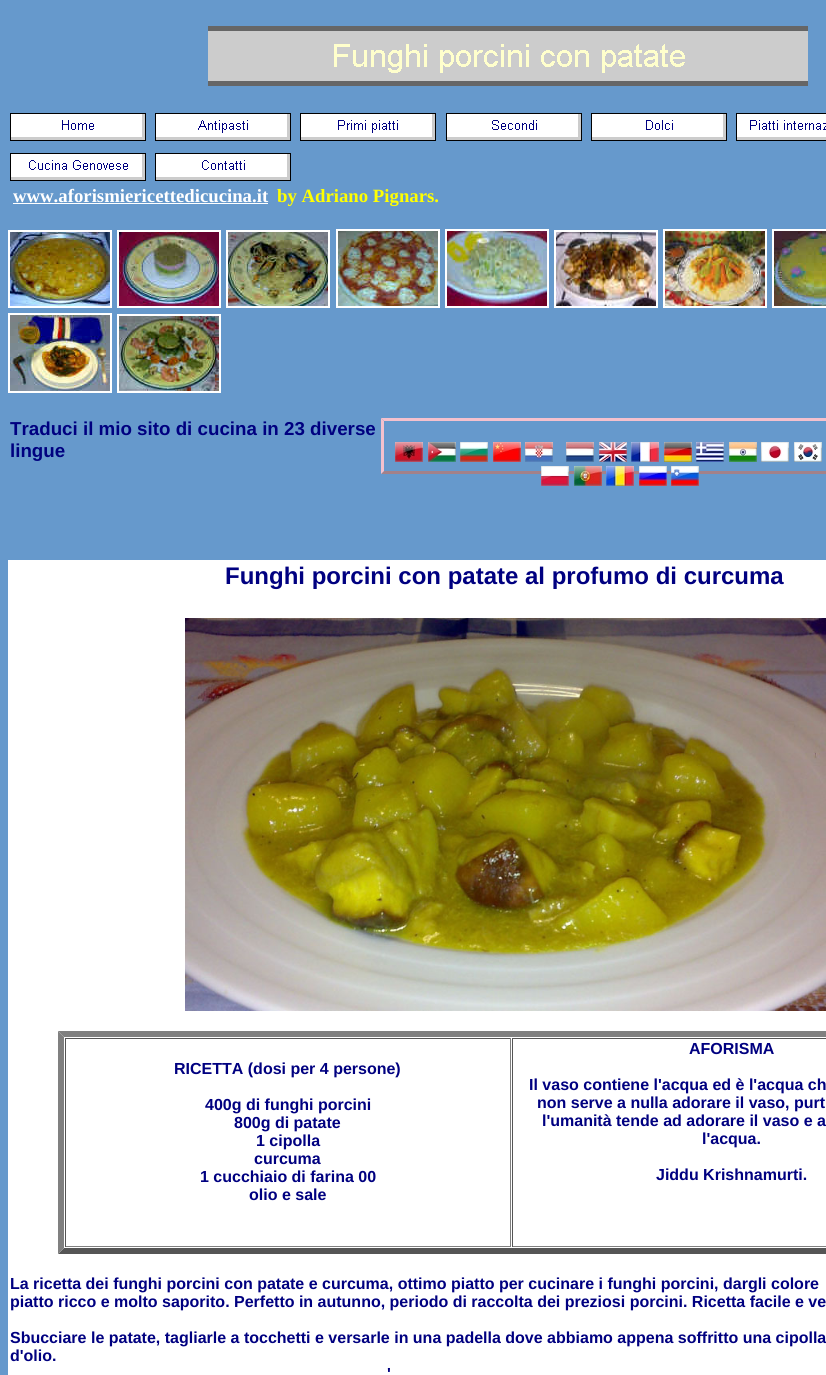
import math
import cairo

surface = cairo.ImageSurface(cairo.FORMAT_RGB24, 826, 1375)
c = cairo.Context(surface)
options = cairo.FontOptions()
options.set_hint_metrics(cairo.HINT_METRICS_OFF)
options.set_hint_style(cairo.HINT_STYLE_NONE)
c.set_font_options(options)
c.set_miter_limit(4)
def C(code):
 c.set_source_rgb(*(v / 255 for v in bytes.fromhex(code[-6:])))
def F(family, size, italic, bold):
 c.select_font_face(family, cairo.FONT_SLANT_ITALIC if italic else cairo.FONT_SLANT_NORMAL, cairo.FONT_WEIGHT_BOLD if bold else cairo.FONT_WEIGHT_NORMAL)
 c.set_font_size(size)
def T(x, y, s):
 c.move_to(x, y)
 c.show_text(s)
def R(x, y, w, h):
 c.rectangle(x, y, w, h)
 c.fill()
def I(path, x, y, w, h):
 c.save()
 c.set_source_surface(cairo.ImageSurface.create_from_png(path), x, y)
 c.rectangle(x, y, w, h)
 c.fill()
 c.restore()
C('6699cc')
c.paint()
I('1.png',208,26,600,60)
I('2.png',10,113,136,28)
I('3.png',155,113,136,28)
I('4.png',300,113,136,28)
I('5.png',446,113,136,28)
I('6.png',591,113,136,28)
I('7.png',736,113,90,28)
I('8.png',10,153,136,28)
I('9.png',155,153,136,28)
F('Liberation Serif',18.75,0,1)
C('ffffff')
T(13,202,'www.aforismiericettedicucina.it')
R(13,203,255,1)
c.rectangle(9,231,102,76)
c.stroke()
c.rectangle(118,231,102,76)
c.stroke()
c.rectangle(9,314,102,78)
c.stroke()
c.rectangle(118,315,102,77)
c.stroke()
C('ffff00')
T(277,202,'by Adriano Pignars.')
c.rectangle(227,231,102,76)
C('ffffff')
c.stroke()
c.rectangle(337,230,102,77)
c.stroke()
c.rectangle(446,230,102,77)
c.stroke()
c.rectangle(555,231,102,76)
c.stroke()
c.rectangle(664,230,102,77)
c.stroke()
c.rectangle(773,230,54,77)
c.stroke()
I('10.png',10,232,100,74)
I('11.png',119,232,100,74)
I('12.png',228,232,100,74)
I('13.png',338,231,100,75)
I('14.png',447,231,100,75)
I('15.png',556,232,100,74)
I('16.png',665,231,100,75)
I('17.png',774,231,52,75)
I('18.png',10,315,100,76)
I('19.png',119,316,100,75)
F('Liberation Sans',18.75,0,1)
C('000080')
T(10,435,'Traduci il mio sito di cucina in 23 diverse')
T(10,457,'lingue')
C('f5c1cd')
c.new_path()
c.move_to(381,418)
c.line_to(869,418)
c.line_to(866,421)
c.line_to(384,421)
c.close_path()
c.fill()
C('a38189')
c.new_path()
c.move_to(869,474)
c.line_to(381,474)
c.line_to(384,471)
c.line_to(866,471)
c.close_path()
c.fill()
C('f5c1cd')
c.new_path()
c.move_to(381,474)
c.line_to(381,418)
c.line_to(384,421)
c.line_to(384,471)
c.close_path()
c.fill()
I('20.png',395,442,28,20)
I('21.png',428,442,28,20)
I('22.png',460,442,28,20)
I('23.png',493,442,28,20)
I('24.png',525,442,28,20)
I('25.png',566,442,28,20)
I('26.png',599,442,28,20)
I('27.png',631,442,28,20)
I('28.png',664,442,28,20)
I('29.png',696,442,28,20)
I('30.png',729,442,28,20)
I('31.png',761,442,28,20)
I('32.png',794,442,28,20)
I('33.png',541,466,28,20)
I('34.png',574,466,28,20)
I('35.png',606,466,28,20)
I('36.png',639,466,28,20)
I('37.png',671,466,28,20)
C('ffffff')
R(8,560,818,815)
F('Liberation Sans',24,0,1)
C('000080')
T(225,584,'Funghi porcini con patate al profumo di curcuma')
I('38.png',185,618,641,393)
C('808080')
c.new_path()
c.move_to(58,1031)
c.line_to(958,1031)
c.line_to(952,1037)
c.line_to(64,1037)
c.close_path()
c.fill()
C('555555')
c.new_path()
c.move_to(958,1254)
c.line_to(58,1254)
c.line_to(64,1248)
c.line_to(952,1248)
c.close_path()
c.fill()
C('808080')
c.new_path()
c.move_to(58,1254)
c.line_to(58,1031)
c.line_to(64,1037)
c.line_to(64,1248)
c.close_path()
c.fill()
C('555555')
R(65,1038,446,1)
C('808080')
R(510,1038,1,209)
R(65,1246,446,1)
C('555555')
R(65,1038,1,209)
F('Liberation Sans',16,0,1)
C('000080')
T(174,1074,'RICETTA (dosi per 4 persone)')
T(205,1110,'400g di funghi porcini')
T(234,1128,'800g di patate')
T(256,1146,'1 cipolla')
T(254,1164,'curcuma')
T(200,1182,'1 cucchiaio di farina 00')
T(249,1200,'olio e sale')
C('555555')
R(512,1038,314,1)
C('808080')
R(512,1246,314,1)
C('555555')
R(512,1038,1,209)
C('000080')
T(689,1054,'AFORISMA')
T(529,1090,'Il vaso contiene l\'acqua ed è l\'acqua ch')
T(537,1108,'non serve a nulla adorare il vaso, purt')
T(542,1126,'l\'umanità tende ad adorare il vaso e a')
T(702,1144,'l\'acqua.')
T(656,1180,'Jiddu Krishnamurti.')
T(10,1289,'La ricetta dei funghi porcini con patate e curcuma, ottimo piatto per cucinare i funghi porcini, dargli colore')
T(10,1307,'piatto ricco e molto saporito. Perfetto in autunno, periodo di raccolta dei preziosi porcini. Ricetta facile e ve')
T(10,1343,'Sbucciare le patate, tagliarle a tocchetti e versarle in una padella dove abbiamo appena soffritto una cipolla')
T(10,1361,'d\'olio.')
T(387,1379,'\'')
surface.write_to_png('o.png')
